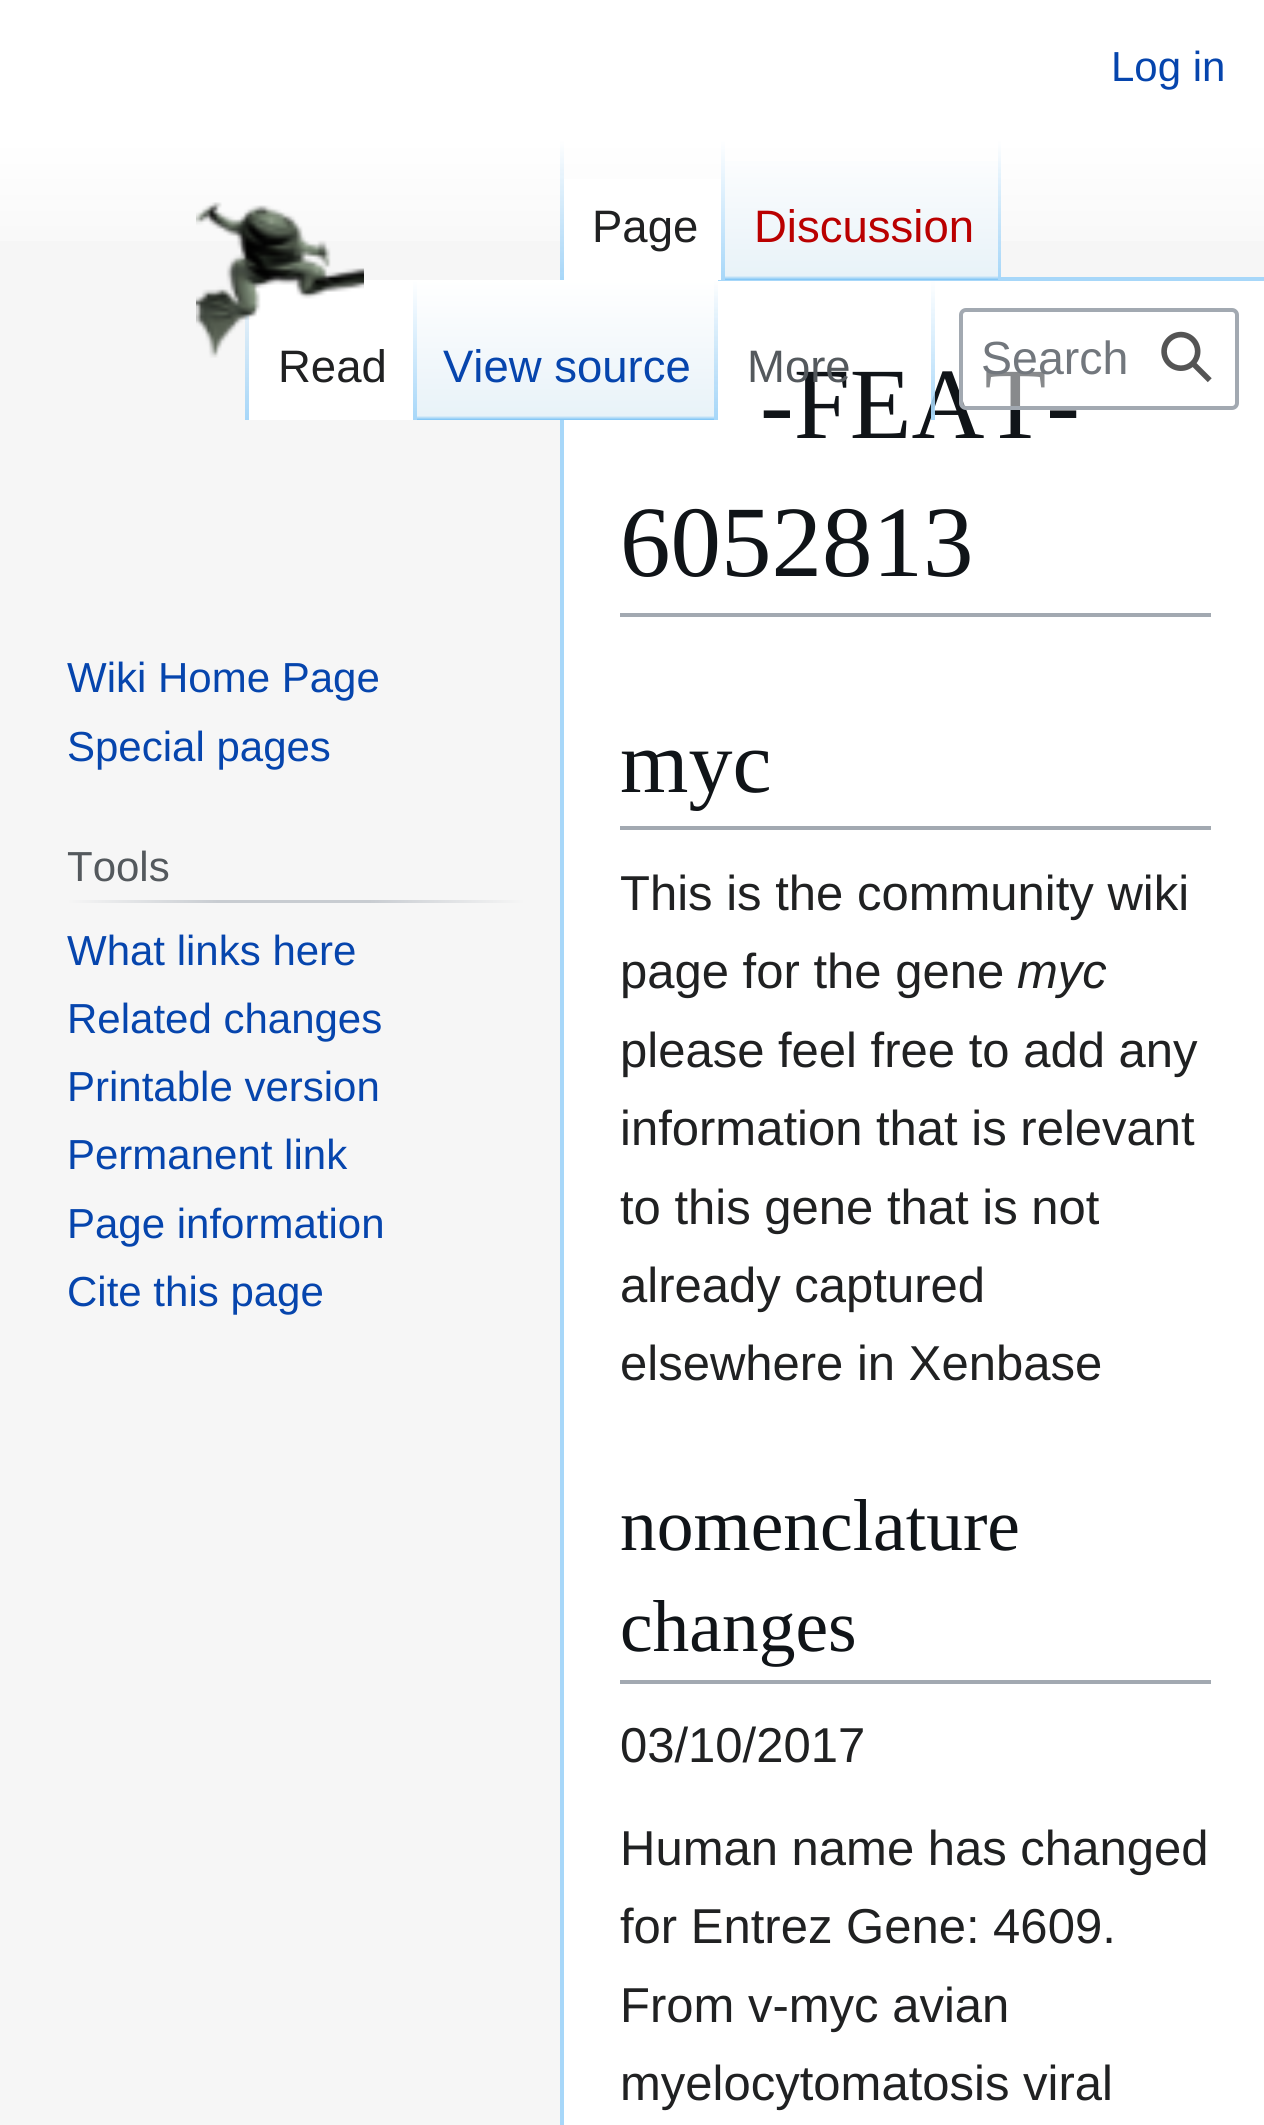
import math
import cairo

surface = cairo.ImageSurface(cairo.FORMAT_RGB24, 1264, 2125)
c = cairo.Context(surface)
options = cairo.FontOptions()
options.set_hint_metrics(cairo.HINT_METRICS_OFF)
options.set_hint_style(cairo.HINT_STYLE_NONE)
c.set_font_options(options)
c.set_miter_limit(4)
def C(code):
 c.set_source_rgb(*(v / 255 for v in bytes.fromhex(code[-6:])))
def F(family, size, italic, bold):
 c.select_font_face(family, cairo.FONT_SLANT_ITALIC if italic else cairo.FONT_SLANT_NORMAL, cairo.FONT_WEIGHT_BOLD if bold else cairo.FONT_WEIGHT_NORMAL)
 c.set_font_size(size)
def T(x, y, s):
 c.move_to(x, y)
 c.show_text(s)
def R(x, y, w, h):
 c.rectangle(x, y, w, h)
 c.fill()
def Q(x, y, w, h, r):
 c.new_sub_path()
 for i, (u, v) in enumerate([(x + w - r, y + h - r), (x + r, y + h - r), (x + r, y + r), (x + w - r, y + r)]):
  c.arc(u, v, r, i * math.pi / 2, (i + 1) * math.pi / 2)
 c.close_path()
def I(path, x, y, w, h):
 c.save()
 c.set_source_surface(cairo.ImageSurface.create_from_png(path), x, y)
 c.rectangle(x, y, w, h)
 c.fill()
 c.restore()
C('f6f6f6')
c.paint()
gradient = cairo.LinearGradient(634,0,634,280)
gradient.add_color_stop_rgba(.5,1,1,1,1)
gradient.add_color_stop_rgba(1,0.965,0.965,0.965,1)
c.set_source(gradient)
R(0,0,1264,241)
F('Liberation Sans',42,0,0)
C('0645ad')
T(1111,81,'Log in')
C('a7d7f9')
R(560,277,4,1848)
gradient = cairo.LinearGradient(562,140,562,280)
gradient.add_color_stop_rgba(0,0.655,0.843,0.976,0)
gradient.add_color_stop_rgba(1,0.655,0.843,0.976,1)
c.set_source(gradient)
R(560,140,4,140)
C('a7d7f9')
R(718,277,546,4)
C('ffffff')
R(564,179,157,101)
gradient = cairo.LinearGradient(723,140,723,280)
gradient.add_color_stop_rgba(0,1,1,1,1)
gradient.add_color_stop_rgba(1,0.655,0.843,0.976,1)
c.set_source(gradient)
R(721,140,4,140)
F('Liberation Sans',45.5,0,0)
C('202122')
T(592,242,'Page')
gradient = cairo.LinearGradient(863,280,863,140)
gradient.add_color_stop_rgba(0,0.467,0.757,0.965,1)
gradient.add_color_stop_rgba(.03,0.91,0.949,0.973,1)
gradient.add_color_stop_rgba(1,1,1,1,1)
c.set_source(gradient)
R(725,161,276,119)
gradient = cairo.LinearGradient(999,140,999,280)
gradient.add_color_stop_rgba(0,0.655,0.843,0.976,0)
gradient.add_color_stop_rgba(1,0.655,0.843,0.976,1)
c.set_source(gradient)
R(998,140,3,140)
C('ba0000')
T(754,242,'Discussion')
gradient = cairo.LinearGradient(247,280,247,420)
gradient.add_color_stop_rgba(0,0.965,0.965,0.965,1)
gradient.add_color_stop_rgba(1,0.655,0.843,0.976,1)
c.set_source(gradient)
R(245,310,4,110)
C('ffffff')
R(249,280,164,140)
gradient = cairo.LinearGradient(415,280,415,420)
gradient.add_color_stop_rgba(0,1,1,1,1)
gradient.add_color_stop_rgba(1,0.655,0.843,0.976,1)
c.set_source(gradient)
R(413,280,4,140)
C('202122')
T(278,382,'Read')
C('ffffff')
R(564,281,700,1844)
gradient = cairo.LinearGradient(567,420,567,280)
gradient.add_color_stop_rgba(0,0.467,0.757,0.965,1)
gradient.add_color_stop_rgba(.03,0.91,0.949,0.973,1)
gradient.add_color_stop_rgba(1,1,1,1,1)
c.set_source(gradient)
R(417,280,301,140)
gradient = cairo.LinearGradient(716,280,716,420)
gradient.add_color_stop_rgba(0,0.655,0.843,0.976,0)
gradient.add_color_stop_rgba(1,0.655,0.843,0.976,1)
c.set_source(gradient)
R(714,280,4,140)
C('0645ad')
T(443,382,'View source')
F('Liberation Serif',101,0,0)
C('101418')
T(760,438,'-FEAT-')
gradient = cairo.LinearGradient(933,280,933,420)
gradient.add_color_stop_rgba(0,0.655,0.843,0.976,0)
gradient.add_color_stop_rgba(1,0.655,0.843,0.976,1)
c.set_source(gradient)
R(931,280,4,140)
F('Liberation Sans',45.5,0,0)
C('54595d')
T(747,382,'More')
c.set_source_rgba(1,1,1,0.5)
Q(961,310,276,98,5)
c.fill_preserve()
C('a2a9b1')
c.set_line_width(4)
c.stroke()
F('Liberation Sans',46.5,0,0)
C('72777d')
T(981,374,'Search')
I('1.png',1161,331,51,52)
I('2.png',196,202,168,156)
F('Liberation Sans',42,0,0)
C('0645ad')
T(67,692,'Wiki Home Page')
T(67,761,'Special pages')
gradient = cairo.LinearGradient(67,901,525,901)
gradient.add_color_stop_rgba(0,0.965,0.965,0.965,1)
gradient.add_color_stop_rgba(.33,0.784,0.8,0.82,1)
gradient.add_color_stop_rgba(.66,0.784,0.8,0.82,1)
gradient.add_color_stop_rgba(1,0.965,0.965,0.965,1)
c.set_source(gradient)
R(67,900,458,3)
C('54595d')
T(67,881,'Tools')
C('0645ad')
T(67,965,'What links here')
T(67,1033,'Related changes')
T(67,1101,'Printable version')
T(67,1169,'Permanent link')
T(67,1238,'Page information')
T(67,1306,'Cite this page')
C('a2a9b1')
R(620,613,591,4)
F('Liberation Serif',101,0,0)
C('101418')
T(620,576,'6052813')
C('a2a9b1')
R(620,826,591,4)
F('Liberation Serif',88,0,0)
C('101418')
T(620,792,'myc')
F('Liberation Sans',49,0,0)
C('202122')
T(620,910,'This is the community wiki')
T(620,988,'page for the gene')
F('Liberation Sans',49,1,0)
T(1017,988,'myc')
F('Liberation Sans',49,0,0)
T(620,1067,'please feel free to add any')
T(620,1145,'information that is relevant')
T(620,1224,'to this gene that is not')
T(620,1302,'already captured')
T(620,1380,'elsewhere in Xenbase')
C('a2a9b1')
R(620,1680,591,4)
F('Liberation Serif',73.5,0,0)
C('101418')
T(620,1550,'nomenclature')
T(620,1651,'changes')
F('Liberation Sans',49,0,0)
C('202122')
T(620,1762,'03/10/2017')
T(620,1865,'Human name has changed')
T(620,1943,'for Entrez Gene: 4609.')
T(620,2022,'From v-myc avian')
T(620,2100,'myelocytomatosis viral')
surface.write_to_png('o.png')
